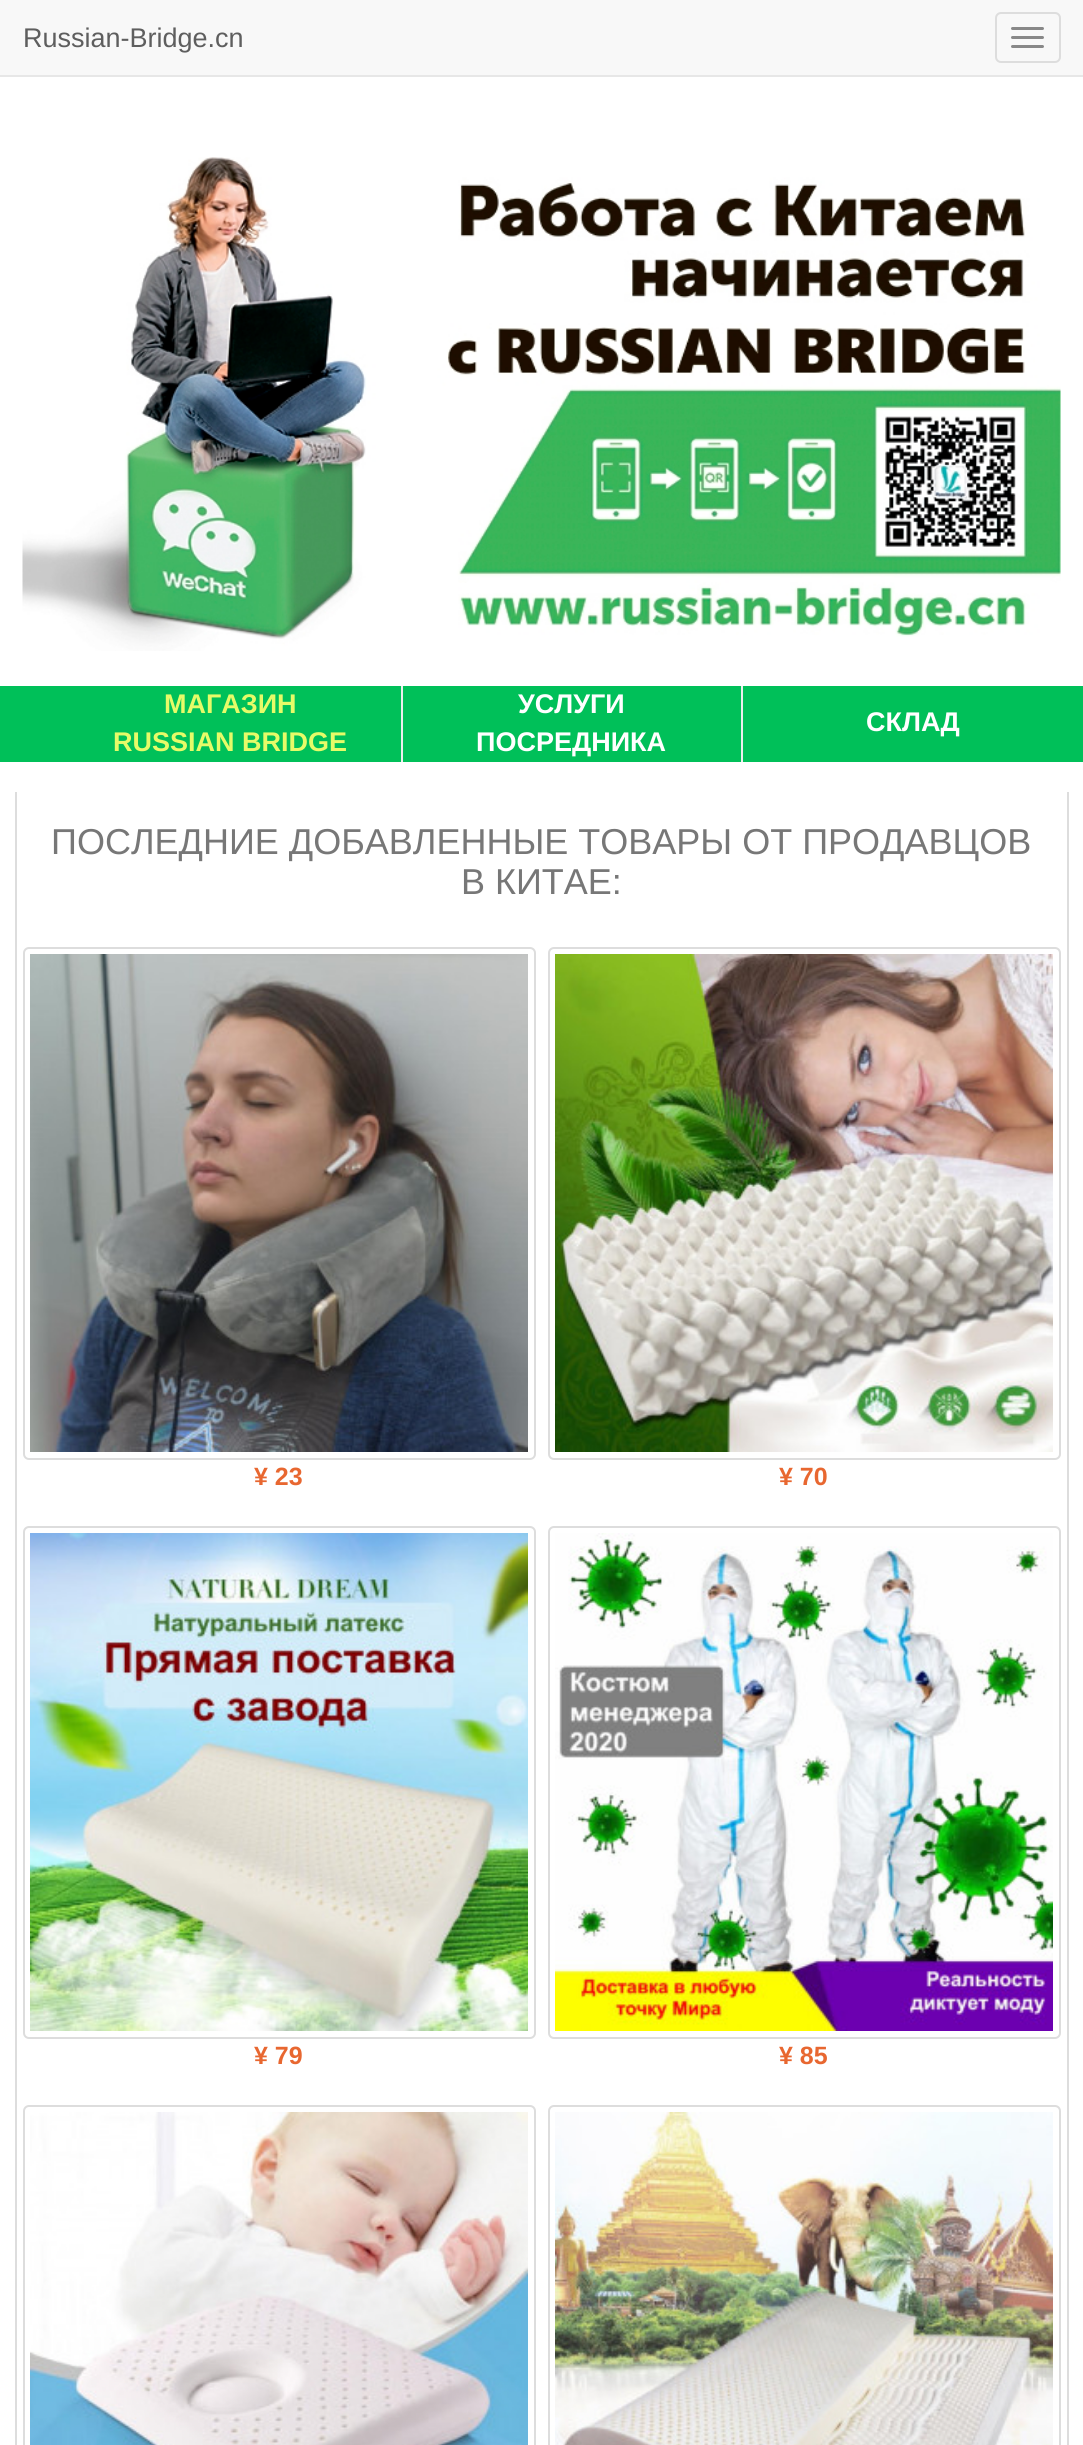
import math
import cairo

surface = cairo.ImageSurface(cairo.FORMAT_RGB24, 1083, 2445)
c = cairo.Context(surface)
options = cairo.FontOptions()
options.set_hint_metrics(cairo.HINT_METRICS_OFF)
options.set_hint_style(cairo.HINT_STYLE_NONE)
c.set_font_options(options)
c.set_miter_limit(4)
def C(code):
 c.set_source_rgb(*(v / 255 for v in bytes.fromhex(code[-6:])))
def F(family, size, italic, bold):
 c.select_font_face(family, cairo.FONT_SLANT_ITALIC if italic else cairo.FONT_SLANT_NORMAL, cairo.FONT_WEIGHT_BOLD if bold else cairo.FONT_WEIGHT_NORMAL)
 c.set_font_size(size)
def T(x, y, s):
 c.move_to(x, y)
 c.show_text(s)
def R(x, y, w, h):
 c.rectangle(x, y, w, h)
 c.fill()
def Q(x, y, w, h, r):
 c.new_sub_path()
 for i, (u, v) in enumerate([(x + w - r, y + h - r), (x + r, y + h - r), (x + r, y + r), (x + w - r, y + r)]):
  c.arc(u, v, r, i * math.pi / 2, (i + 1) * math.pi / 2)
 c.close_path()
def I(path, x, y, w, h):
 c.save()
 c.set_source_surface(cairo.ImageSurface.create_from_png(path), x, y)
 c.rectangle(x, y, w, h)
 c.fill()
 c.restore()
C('ffffff')
c.paint()
C('f8f8f8')
R(0,0,1083,75)
C('e7e7e7')
R(0,75,1083,2)
F('Liberation Sans',27,0,0)
C('5e5e5e')
T(23,47,'Russian-Bridge.cn')
Q(996,13,64,49,5)
C('dddddd')
c.stroke()
C('888888')
Q(1011,27,33,3,1.5)
c.fill()
Q(1011,36,33,3,1.5)
c.fill()
Q(1011,45,33,3,1.5)
c.fill()
I('1.png',22,157,1039,494)
C('00c059')
R(0,686,1083,76)
F('Liberation Sans',27,0,1)
C('e6fb68')
T(164,713,'МАГАЗИН')
T(113,751,'RUSSIAN BRIDGE')
C('eeeeee')
R(741,686,2,76)
R(401,686,2,76)
C('ffffff')
T(518,713,'УСЛУГИ')
T(476,751,'ПОСРЕДНИКА')
T(866,731,'СКЛАД')
C('dddddd')
R(1067,792,2,1653)
R(15,792,2,1653)
F('Liberation Sans',36,0,0)
C('777777')
T(51,854,'ПОСЛЕДНИЕ ДОБАВЛЕННЫЕ ТОВАРЫ ОТ ПРОДАВЦОВ')
T(461,894,'В КИТАЕ:')
Q(24,948,511,511,5)
C('dddddd')
c.stroke()
I('2.png',30,954,498,498)
F('Liberation Sans',25,0,1)
C('e86730')
T(254,1485,'¥ 23')
Q(549,948,511,511,5)
C('dddddd')
c.stroke()
I('3.png',555,954,498,498)
C('e86730')
T(779,1485,'¥ 70')
Q(24,1527,511,511,5)
C('dddddd')
c.stroke()
I('4.png',30,1533,498,498)
C('e86730')
T(254,2064,'¥ 79')
Q(549,1527,511,511,5)
C('dddddd')
c.stroke()
I('5.png',555,1533,498,498)
C('e86730')
T(779,2064,'¥ 85')
Q(24,2106,511,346,5)
C('dddddd')
c.stroke()
I('6.png',30,2112,498,333)
Q(549,2106,511,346,5)
c.stroke()
I('7.png',555,2112,498,333)
surface.write_to_png('o.png')
